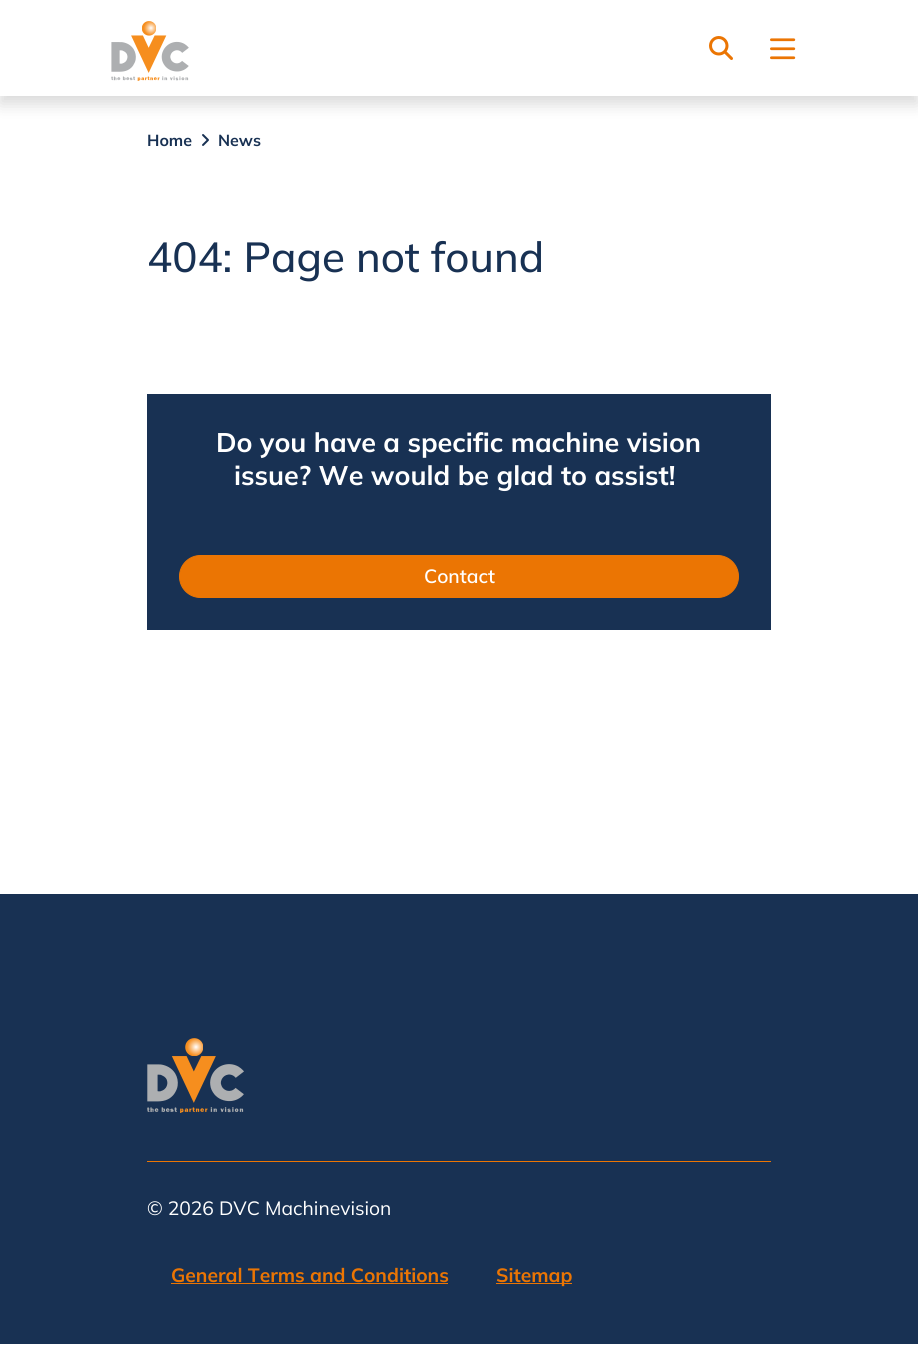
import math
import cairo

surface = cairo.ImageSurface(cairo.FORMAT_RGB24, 918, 1356)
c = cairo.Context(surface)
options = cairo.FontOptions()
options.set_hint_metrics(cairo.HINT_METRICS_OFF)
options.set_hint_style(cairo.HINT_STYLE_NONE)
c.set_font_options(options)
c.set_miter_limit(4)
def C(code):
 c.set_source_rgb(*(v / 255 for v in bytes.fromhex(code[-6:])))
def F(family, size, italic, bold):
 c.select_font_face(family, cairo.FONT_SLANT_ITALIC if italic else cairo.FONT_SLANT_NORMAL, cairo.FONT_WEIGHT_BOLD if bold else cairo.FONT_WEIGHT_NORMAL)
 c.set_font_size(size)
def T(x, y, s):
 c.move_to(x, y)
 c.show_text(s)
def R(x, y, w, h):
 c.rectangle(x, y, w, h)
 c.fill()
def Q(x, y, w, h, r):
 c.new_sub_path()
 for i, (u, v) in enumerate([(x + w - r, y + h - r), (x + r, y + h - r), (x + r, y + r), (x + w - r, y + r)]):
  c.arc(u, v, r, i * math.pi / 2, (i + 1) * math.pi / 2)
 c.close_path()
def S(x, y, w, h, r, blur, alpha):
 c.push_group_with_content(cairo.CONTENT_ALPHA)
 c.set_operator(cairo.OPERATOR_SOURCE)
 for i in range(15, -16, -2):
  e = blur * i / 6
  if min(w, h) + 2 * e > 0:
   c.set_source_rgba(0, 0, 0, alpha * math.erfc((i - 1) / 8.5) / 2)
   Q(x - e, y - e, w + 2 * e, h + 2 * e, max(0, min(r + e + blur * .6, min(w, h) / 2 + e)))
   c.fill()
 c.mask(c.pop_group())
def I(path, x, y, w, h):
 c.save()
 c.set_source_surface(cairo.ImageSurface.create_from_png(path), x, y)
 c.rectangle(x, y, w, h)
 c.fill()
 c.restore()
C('ffffff')
c.paint()
C('000000')
S(0,8,918,96,0,8,.15)
C('ffffff')
R(0,0,918,96)
I('1.png',111,21,78,60)
I('2.png',709,36,24,24)
I('3.png',770,38,26,22)
F('Mulish',16,0,1)
C('183153')
T(147,146,'Home')
I('4.png',202,134,7,12)
T(218,146,'News')
F('Mulish Medium',42,0,0)
T(147,272,'404: Page not found')
R(147,394,624,236)
F('Mulish',26.9,0,1)
C('ffffff')
T(216,452,'Do you have a specific machine vision')
T(234,485,'issue? We would be glad to assist!')
C('eb7503')
Q(179.5,555.5,559,42,21)
c.fill_preserve()
c.set_line_width(1)
c.stroke()
F('Mulish SemiBold',19.25,0,0)
C('ffffff')
T(424,583,'Contact')
C('183153')
R(0,894,918,450)
I('5.png',147,1038,97,75)
C('eb7503')
R(147,1161,624,1)
F('Mulish',19.25,0,0)
C('ffffff')
T(147,1215,'© 2026 DVC Machinevision')
F('Mulish',19.25,0,1)
C('eb7503')
T(171,1282,'General Terms and Conditions')
R(171,1283,277,1)
R(496,1283,76,1)
T(496,1282,'Sitemap')
surface.write_to_png('o.png')
